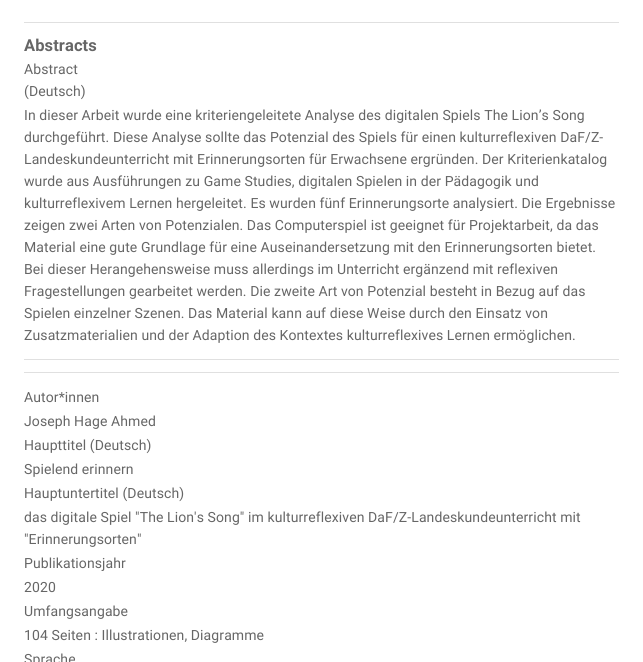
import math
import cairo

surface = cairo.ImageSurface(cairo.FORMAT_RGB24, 643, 662)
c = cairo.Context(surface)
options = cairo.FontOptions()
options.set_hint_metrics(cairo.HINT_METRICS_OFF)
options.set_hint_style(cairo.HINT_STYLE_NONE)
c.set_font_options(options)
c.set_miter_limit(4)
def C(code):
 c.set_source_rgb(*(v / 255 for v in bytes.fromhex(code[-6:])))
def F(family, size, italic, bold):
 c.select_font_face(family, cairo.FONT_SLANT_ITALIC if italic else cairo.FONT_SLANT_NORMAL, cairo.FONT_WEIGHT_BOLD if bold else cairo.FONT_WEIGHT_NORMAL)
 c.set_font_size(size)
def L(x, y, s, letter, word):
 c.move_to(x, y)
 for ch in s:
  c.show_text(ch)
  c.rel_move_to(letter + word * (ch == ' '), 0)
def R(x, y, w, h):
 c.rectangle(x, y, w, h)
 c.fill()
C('ffffff')
c.paint()
C('e0e0e0')
R(24,22,595,1)
F('Roboto',16.5,0,1)
C('666666')
L(24,51,'Abstracts',.1,0)
F('Roboto',14,0,0)
L(24,74,'Abstract',.1,0)
L(24,96,'(Deutsch)',.1,0)
L(24,120,'In dieser Arbeit wurde eine kriteriengeleitete Analyse des digitalen Spiels The Lion’s Song',.1,0)
L(24,142,'durchgeführt. Diese Analyse sollte das Potenzial des Spiels für einen kulturreflexiven DaF/Z-',.1,0)
L(24,164,'Landeskundeunterricht mit Erinnerungsorten für Erwachsene ergründen. Der Kriterienkatalog',.1,0)
L(24,186,'wurde aus Ausführungen zu Game Studies, digitalen Spielen in der Pädagogik und',.1,0)
L(24,208,'kulturreflexivem Lernen hergeleitet. Es wurden fünf Erinnerungsorte analysiert. Die Ergebnisse',.1,0)
L(24,230,'zeigen zwei Arten von Potenzialen. Das Computerspiel ist geeignet für Projektarbeit, da das',.1,0)
L(24,252,'Material eine gute Grundlage für eine Auseinandersetzung mit den Erinnerungsorten bietet.',.1,0)
L(24,274,'Bei dieser Herangehensweise muss allerdings im Unterricht ergänzend mit reflexiven',.1,0)
L(24,296,'Fragestellungen gearbeitet werden. Die zweite Art von Potenzial besteht in Bezug auf das',.1,0)
L(24,318,'Spielen einzelner Szenen. Das Material kann auf diese Weise durch den Einsatz von',.1,0)
L(24,340,'Zusatzmaterialien und der Adaption des Kontextes kulturreflexives Lernen ermöglichen.',.1,0)
C('e0e0e0')
R(24,359,595,1)
R(24,372,595,1)
C('666666')
L(24,402,'Autor*innen',.1,0)
L(24,426,'Joseph Hage Ahmed',.1,0)
L(24,450,'Haupttitel (Deutsch)',.1,0)
L(24,474,'Spielend erinnern',.1,0)
L(24,498,'Hauptuntertitel (Deutsch)',.1,0)
L(24,522,'das digitale Spiel "The Lion\'s Song" im kulturreflexiven DaF/Z-Landeskundeunterricht mit',.1,0)
L(24,544,'"Erinnerungsorten"',.1,0)
L(24,568,'Publikationsjahr',.1,0)
L(24,592,'2020',.1,0)
L(24,616,'Umfangsangabe',.1,0)
L(24,640,'104 Seiten : Illustrationen, Diagramme',.1,0)
L(24,664,'Sprache',.1,0)
surface.write_to_png('o.png')
